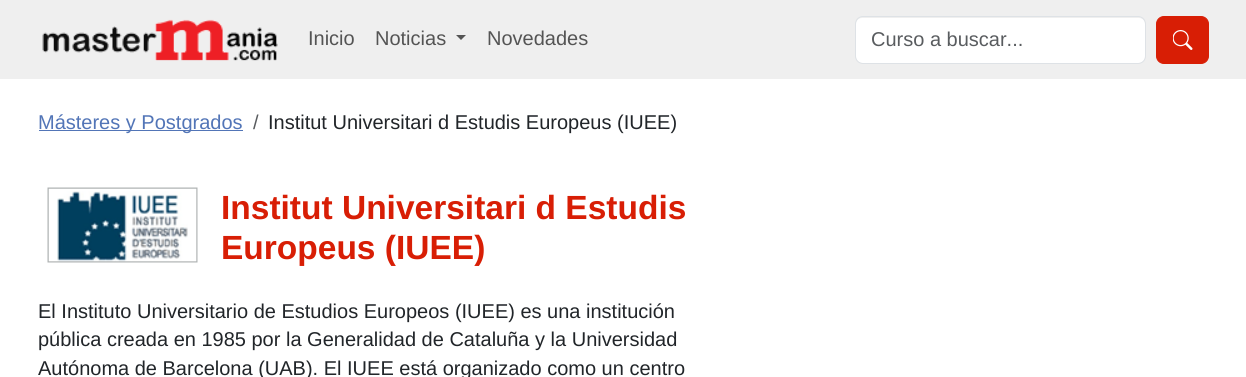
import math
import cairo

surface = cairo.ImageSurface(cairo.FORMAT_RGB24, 1246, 377)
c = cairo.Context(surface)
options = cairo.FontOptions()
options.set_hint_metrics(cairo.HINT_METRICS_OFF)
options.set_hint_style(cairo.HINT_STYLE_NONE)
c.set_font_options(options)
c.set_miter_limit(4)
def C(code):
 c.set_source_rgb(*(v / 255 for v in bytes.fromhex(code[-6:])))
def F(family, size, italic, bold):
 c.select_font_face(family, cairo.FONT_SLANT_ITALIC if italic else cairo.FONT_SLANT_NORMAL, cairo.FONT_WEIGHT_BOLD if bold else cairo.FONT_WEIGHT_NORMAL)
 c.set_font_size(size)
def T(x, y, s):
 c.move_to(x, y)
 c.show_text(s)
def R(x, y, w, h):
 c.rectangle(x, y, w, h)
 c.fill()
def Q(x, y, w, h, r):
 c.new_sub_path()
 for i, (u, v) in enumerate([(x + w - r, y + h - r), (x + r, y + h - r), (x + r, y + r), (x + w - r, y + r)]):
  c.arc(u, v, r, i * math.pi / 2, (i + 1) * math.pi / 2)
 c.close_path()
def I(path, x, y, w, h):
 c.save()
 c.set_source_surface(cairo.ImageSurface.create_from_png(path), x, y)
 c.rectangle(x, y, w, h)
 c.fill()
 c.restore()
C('ffffff')
c.paint()
C('efefef')
R(0,0,1246,79)
I('1.png',42,19,236,42)
F('Liberation Sans',20,0,0)
C('545454')
T(308,45,'Inicio')
T(375,45,'Noticias')
c.new_path()
c.move_to(456,35)
c.line_to(466,35)
c.line_to(461,40)
c.close_path()
c.fill()
T(487,45,'Novedades')
C('ffffff')
Q(856,18,289,45,6)
c.fill()
Q(855.5,16.5,290,47,7.5)
C('dee2e6')
c.set_line_width(1)
c.stroke()
C('595c5f')
T(871,46,'Curso a buscar...')
C('d81e05')
Q(1156.5,16.5,52,47,7.5)
c.fill_preserve()
c.stroke()
I('2.png',1173,30,20,20)
C('5275b7')
R(39,130,204,1)
T(38,129,'Másteres y Postgrados')
C('595c5f')
T(253,129,'/')
C('212529')
T(268,129,'Institut Universitari d Estudis Europeus (IUEE)')
I('3.png',47,187,151,76)
F('Liberation Sans',33.5,0,1)
C('d81e05')
T(221,219,'Institut Universitari d Estudis')
T(221,259,'Europeus (IUEE)')
F('Liberation Sans',20,0,0)
C('212529')
T(38,318,'El Instituto Universitario de Estudios Europeos (IUEE) es una institución')
T(38,346,'pública creada en 1985 por la Generalidad de Cataluña y la Universidad')
T(38,375,'Autónoma de Barcelona (UAB). El IUEE está organizado como un centro')
surface.write_to_png('o.png')
